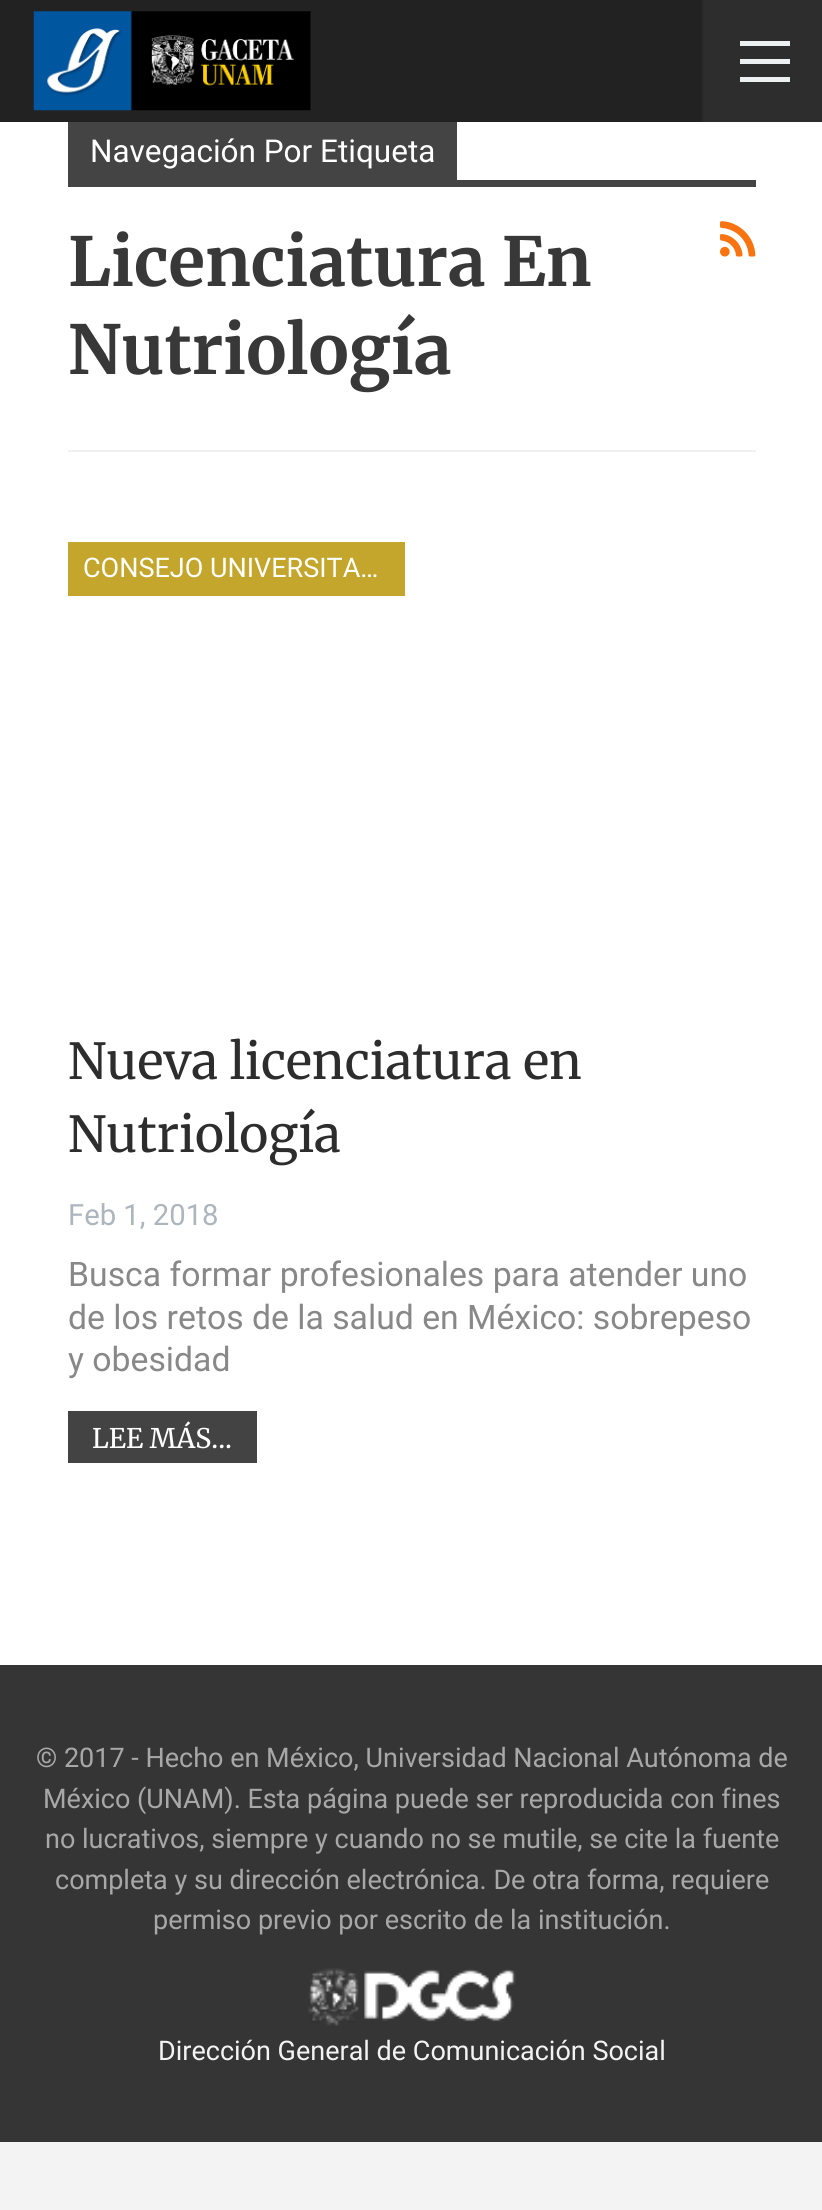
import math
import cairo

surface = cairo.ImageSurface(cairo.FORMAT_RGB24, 822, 2210)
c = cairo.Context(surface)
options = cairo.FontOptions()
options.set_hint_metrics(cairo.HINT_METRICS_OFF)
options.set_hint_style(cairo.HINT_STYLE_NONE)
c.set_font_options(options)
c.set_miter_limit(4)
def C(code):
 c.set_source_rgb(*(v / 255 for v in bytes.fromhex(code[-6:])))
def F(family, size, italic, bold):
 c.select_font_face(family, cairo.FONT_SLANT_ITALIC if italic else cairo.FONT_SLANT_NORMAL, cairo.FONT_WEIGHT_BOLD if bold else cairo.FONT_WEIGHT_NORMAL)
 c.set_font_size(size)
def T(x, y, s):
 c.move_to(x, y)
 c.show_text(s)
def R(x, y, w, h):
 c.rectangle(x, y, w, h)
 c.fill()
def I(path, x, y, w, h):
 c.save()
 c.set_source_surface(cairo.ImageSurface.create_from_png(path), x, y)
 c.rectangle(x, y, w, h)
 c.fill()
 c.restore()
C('f3f3f3')
c.paint()
C('ffffff')
R(0,122,822,1543)
C('222222')
R(0,0,702,122)
I('1.png',33,11,278,100)
C('2d2d2d')
R(704,0,118,122)
C('2a2a2a')
R(702,0,2,122)
C('ecf0f1')
R(740,59,50,5)
R(740,41,50,5)
R(740,77,50,5)
C('f0f0f0')
R(68,450,688,2)
C('444444')
R(68,122,389,58)
F('Roboto',31.5,0,0)
C('ffffff')
T(90,162,'Navegación Por Etiqueta')
C('444444')
R(68,180,688,7)
F('Merriweather',67.5,0,1)
C('383838')
T(68,286,'Licenciatura En')
T(68,374,'Nutriología')
I('2.png',720,221,36,36)
C('c4a62d')
R(68,542,337,54)
F('Roboto',27,0,0)
C('ffffff')
T(83,577,'CONSEJO UNIVERSITA…')
F('Merriweather',49.5,0,0)
C('2d2d2d')
T(68,1079,'Nueva licenciatura en')
T(68,1152,'Nutriología')
F('Roboto',29.25,0,0)
C('adb5bd')
T(68,1225,'Feb 1, 2018')
F('Roboto',33.75,0,0)
C('888888')
T(68,1286,'Busca formar profesionales para atender uno')
T(68,1329,'de los retos de la salud en México: sobrepeso')
T(68,1371,'y obesidad')
C('434343')
R(68,1411,189,52)
F('Merriweather',27,0,0)
C('ffffff')
T(92,1448,'LEE MÁS...')
C('353535')
R(0,1665,822,477)
F('Roboto',27,0,0)
C('a8a8a8')
T(36,1767,'© 2017 - Hecho en México, Universidad Nacional Autónoma de')
T(43,1808,'México (UNAM). Esta página puede ser reproducida con fines')
T(45,1848,'no lucrativos, siempre y cuando no se mutile, se cite la fuente')
T(55,1889,'completa y su dirección electrónica. De otra forma, requiere')
T(153,1929,'permiso previo por escrito de la institución.')
I('3.png',308,1968,208,58)
C('f3f3f3')
T(158,2060,'Dirección General de Comunicación Social')
surface.write_to_png('o.png')
